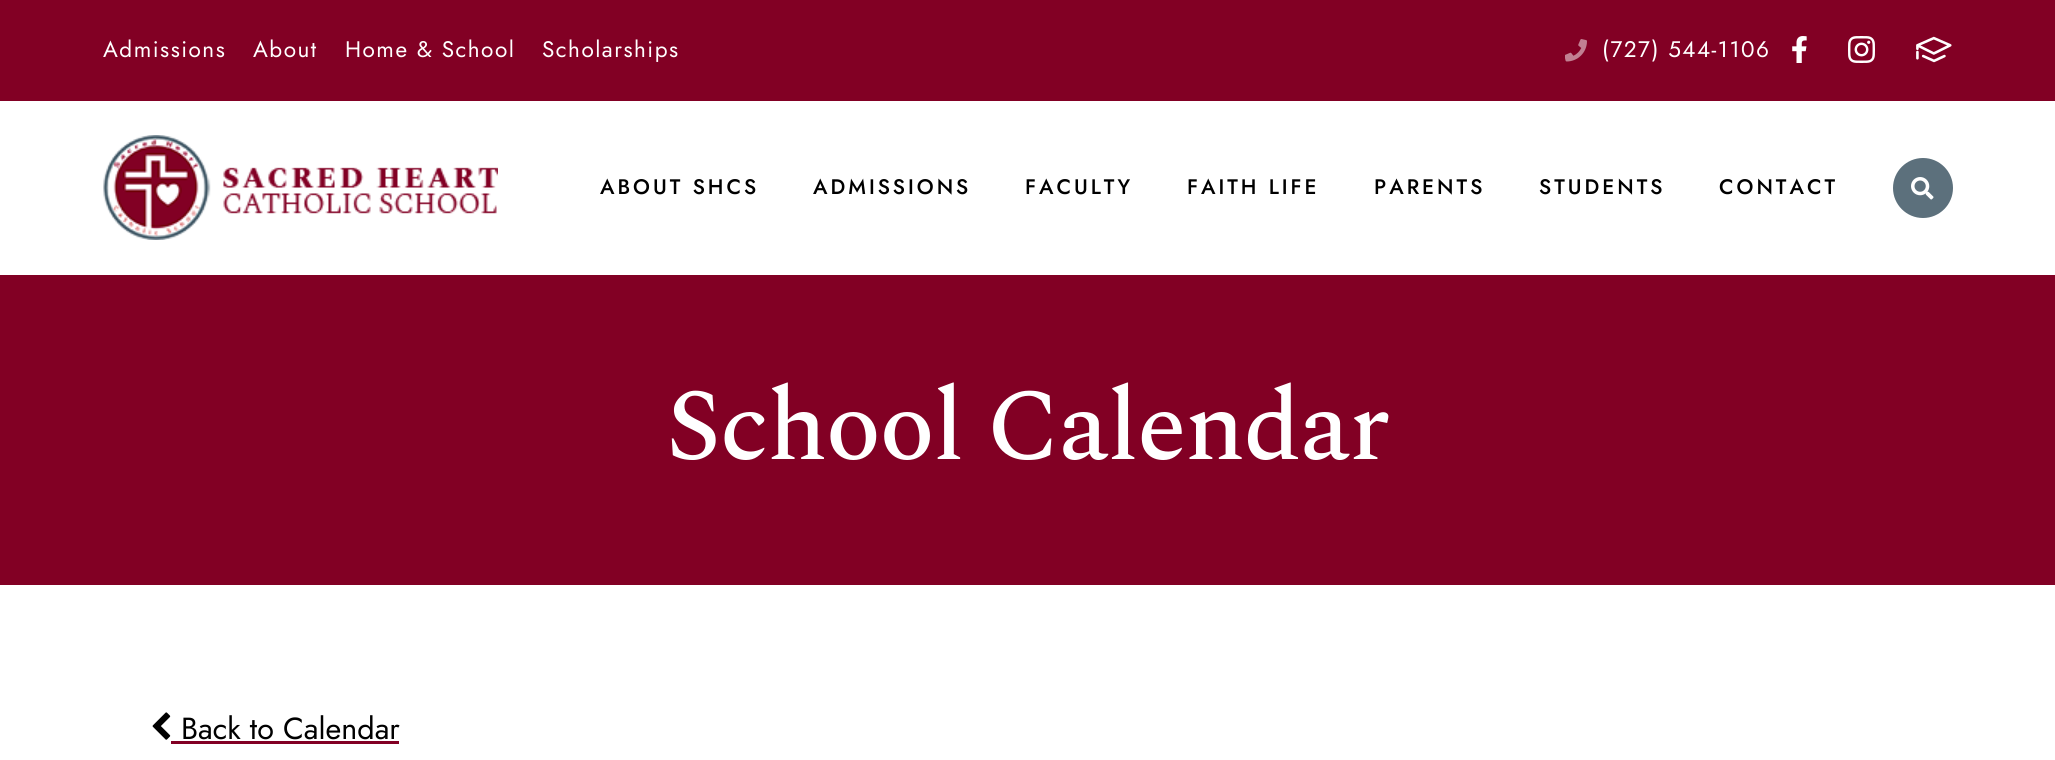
import math
import cairo

surface = cairo.ImageSurface(cairo.FORMAT_RGB24, 2055, 760)
c = cairo.Context(surface)
options = cairo.FontOptions()
options.set_hint_metrics(cairo.HINT_METRICS_OFF)
options.set_hint_style(cairo.HINT_STYLE_NONE)
c.set_font_options(options)
c.set_miter_limit(4)
def C(code):
 c.set_source_rgb(*(v / 255 for v in bytes.fromhex(code[-6:])))
def F(family, size, italic, bold):
 c.select_font_face(family, cairo.FONT_SLANT_ITALIC if italic else cairo.FONT_SLANT_NORMAL, cairo.FONT_WEIGHT_BOLD if bold else cairo.FONT_WEIGHT_NORMAL)
 c.set_font_size(size)
def T(x, y, s):
 c.move_to(x, y)
 c.show_text(s)
def L(x, y, s, letter, word):
 c.move_to(x, y)
 for ch in s:
  c.show_text(ch)
  c.rel_move_to(letter + word * (ch == ' '), 0)
def R(x, y, w, h):
 c.rectangle(x, y, w, h)
 c.fill()
def I(path, x, y, w, h):
 c.save()
 c.set_source_surface(cairo.ImageSurface.create_from_png(path), x, y)
 c.rectangle(x, y, w, h)
 c.fill()
 c.restore()
C('ffffff')
c.paint()
C('820024')
R(0,0,2055,101)
F('Jost',22.5,0,0)
C('ffffff')
L(103,57,'Admissions',1.5,0)
L(253,57,'About',1.5,0)
L(345,57,'Home & School',1.5,0)
L(542,57,'Scholarships',1.5,0)
I('1.png',1565,39,22,23)
L(1602,57,'(727) 544-1106',1.5,0)
I('2.png',1792,36,15,27)
I('3.png',1848,36,27,27)
I('4.png',1916,36,36,27)
I('5.png',103,135,395,105)
F('Jost Medium',21,0,0)
C('000000')
L(600,194,'ABOUT SHCS',3,0)
L(813,194,'ADMISSIONS',3,0)
L(1025,194,'FACULTY',3,0)
L(1187,194,'FAITH LIFE',3,0)
L(1374,194,'PARENTS',3,0)
L(1539,194,'STUDENTS',3,0)
L(1719,194,'CONTACT',3,0)
C('5c707c')
c.new_path()
c.arc(1923,188,30,0,2 * math.pi)
c.fill()
I('6.png',1911,177,23,23)
C('820024')
R(0,275,2055,310)
F('Spectral Medium',102,0,0)
C('ffffff')
L(666,459,'School Calendar',-1.5,0)
I('7.png',152,712,19,28)
F('Jost',30.5,0,0)
C('000000')
T(181,739,'Back to Calendar')
C('820024')
R(171,741,228,3)
surface.write_to_png('o.png')
